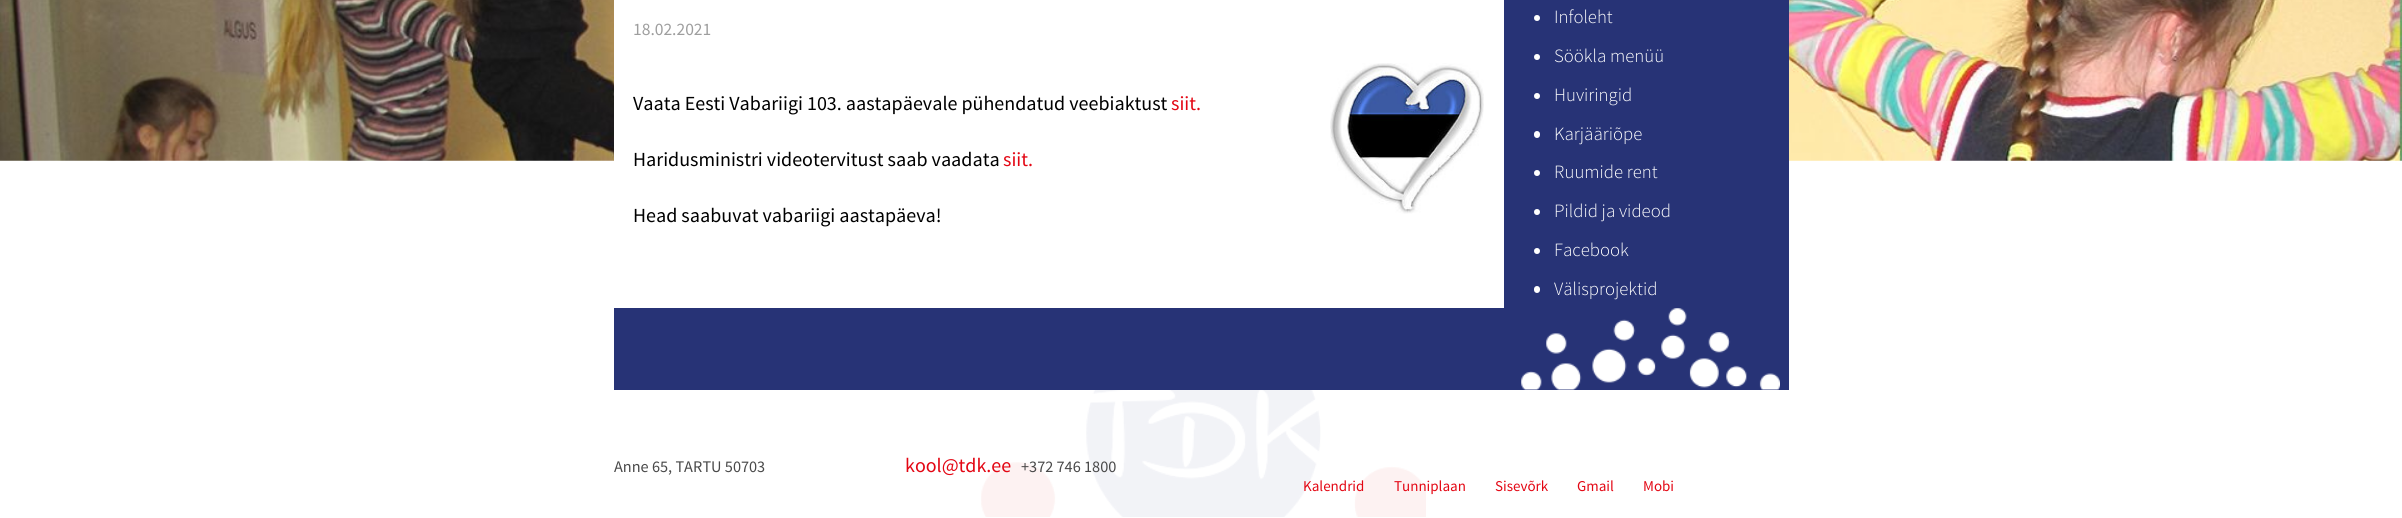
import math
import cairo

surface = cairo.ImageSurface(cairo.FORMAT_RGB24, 2402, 518)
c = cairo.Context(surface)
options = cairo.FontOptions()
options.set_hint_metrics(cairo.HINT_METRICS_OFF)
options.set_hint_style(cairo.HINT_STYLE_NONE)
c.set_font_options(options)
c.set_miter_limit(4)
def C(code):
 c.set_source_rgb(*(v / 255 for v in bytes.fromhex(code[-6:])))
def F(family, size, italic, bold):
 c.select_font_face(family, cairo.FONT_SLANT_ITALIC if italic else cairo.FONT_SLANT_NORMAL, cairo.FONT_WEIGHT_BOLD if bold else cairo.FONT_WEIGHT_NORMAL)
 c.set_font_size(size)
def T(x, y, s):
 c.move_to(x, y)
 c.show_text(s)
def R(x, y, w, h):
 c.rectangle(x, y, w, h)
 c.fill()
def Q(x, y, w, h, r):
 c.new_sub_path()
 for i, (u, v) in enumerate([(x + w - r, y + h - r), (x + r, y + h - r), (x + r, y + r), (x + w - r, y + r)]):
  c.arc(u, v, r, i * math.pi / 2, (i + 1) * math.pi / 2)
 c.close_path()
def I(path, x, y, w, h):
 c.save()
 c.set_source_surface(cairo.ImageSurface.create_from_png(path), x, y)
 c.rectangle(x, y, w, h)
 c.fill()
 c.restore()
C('ffffff')
c.paint()
I('1.png',0,0,2402,161)
C('273376')
R(614,0,1175,390)
I('2.png',1521,308,259,82)
C('ffffff')
R(614,0,890,308)
F('Source Sans Pro',17.5,0,0)
C('9e9e9e')
T(633,35,'18.02.2021')
F('Source Sans Pro',20,0,0)
C('000000')
T(633,110,'Vaata Eesti Vabariigi 103. aastapäevale pühendatud veebiaktust')
C('e30613')
T(1171,110,'siit.')
I('3.png',1330,63,154,151)
C('000000')
T(633,166,'Haridusministri videotervitust saab vaadata')
C('e30613')
T(1003,166,'siit.')
C('000000')
T(633,222,'Head saabuvat vabariigi aastapäeva!')
C('ffffff')
c.new_path()
c.arc(1537,18,3,0,2 * math.pi)
c.fill()
F('Source Sans Pro Light',18.75,0,0)
T(1554,23,'Infoleht')
c.new_path()
c.arc(1537,57,3,0,2 * math.pi)
c.fill()
T(1554,62,'Söökla menüü')
c.new_path()
c.arc(1537,96,3,0,2 * math.pi)
c.fill()
T(1554,101,'Huviringid')
Q(1534,131,6,7,3)
c.fill()
T(1554,140,'Karjääriõpe')
c.new_path()
c.arc(1537,173,3,0,2 * math.pi)
c.fill()
T(1554,178,'Ruumide rent')
c.new_path()
c.arc(1537,212,3,0,2 * math.pi)
c.fill()
T(1554,217,'Pildid ja videod')
c.new_path()
c.arc(1537,251,3,0,2 * math.pi)
c.fill()
T(1554,256,'Facebook')
Q(1534,286,6,7,3)
c.fill()
T(1554,295,'Välisprojektid')
I('4.png',981,390,445,127)
F('Source Sans Pro',16.25,0,0)
C('494949')
T(614,472,'Anne 65, TARTU 50703')
F('Source Sans Pro',20,0,0)
C('e30613')
T(905,472,'kool@tdk.ee')
F('Source Sans Pro',16.25,0,0)
C('494949')
T(1021,472,'+372 746 1800')
F('Source Sans Pro',15,0,0)
C('e30613')
T(1303,491,'Kalendrid')
T(1394,491,'Tunniplaan')
T(1495,491,'Sisevõrk')
T(1577,491,'Gmail')
T(1643,491,'Mobi')
surface.write_to_png('o.png')
